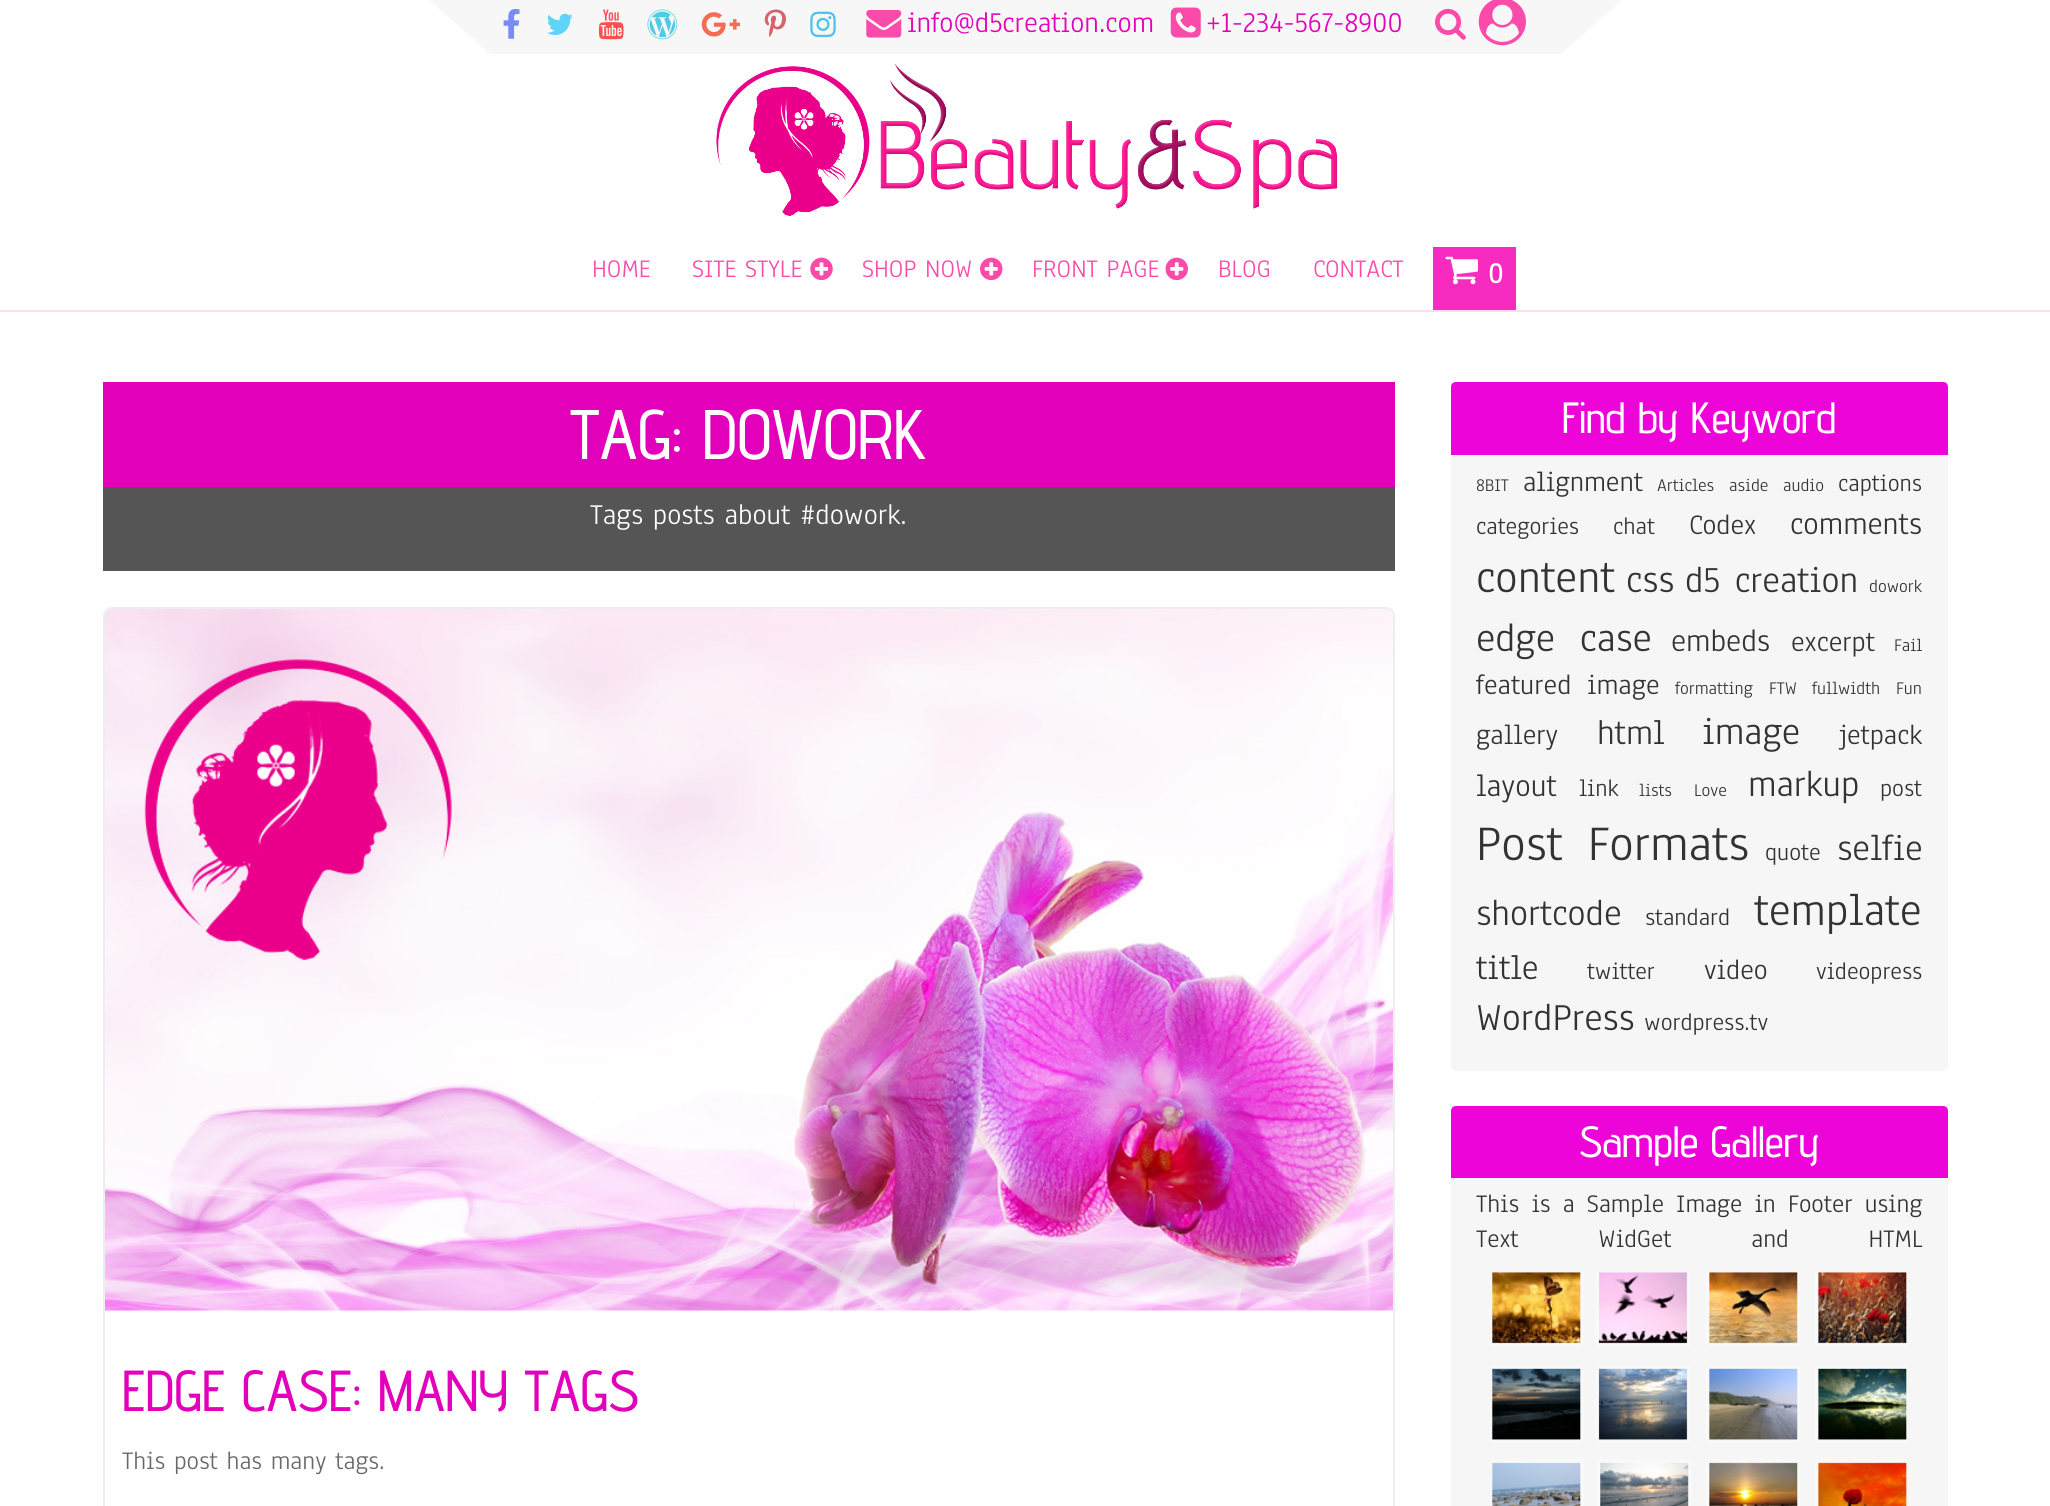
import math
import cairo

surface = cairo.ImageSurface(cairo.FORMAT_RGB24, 2050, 1506)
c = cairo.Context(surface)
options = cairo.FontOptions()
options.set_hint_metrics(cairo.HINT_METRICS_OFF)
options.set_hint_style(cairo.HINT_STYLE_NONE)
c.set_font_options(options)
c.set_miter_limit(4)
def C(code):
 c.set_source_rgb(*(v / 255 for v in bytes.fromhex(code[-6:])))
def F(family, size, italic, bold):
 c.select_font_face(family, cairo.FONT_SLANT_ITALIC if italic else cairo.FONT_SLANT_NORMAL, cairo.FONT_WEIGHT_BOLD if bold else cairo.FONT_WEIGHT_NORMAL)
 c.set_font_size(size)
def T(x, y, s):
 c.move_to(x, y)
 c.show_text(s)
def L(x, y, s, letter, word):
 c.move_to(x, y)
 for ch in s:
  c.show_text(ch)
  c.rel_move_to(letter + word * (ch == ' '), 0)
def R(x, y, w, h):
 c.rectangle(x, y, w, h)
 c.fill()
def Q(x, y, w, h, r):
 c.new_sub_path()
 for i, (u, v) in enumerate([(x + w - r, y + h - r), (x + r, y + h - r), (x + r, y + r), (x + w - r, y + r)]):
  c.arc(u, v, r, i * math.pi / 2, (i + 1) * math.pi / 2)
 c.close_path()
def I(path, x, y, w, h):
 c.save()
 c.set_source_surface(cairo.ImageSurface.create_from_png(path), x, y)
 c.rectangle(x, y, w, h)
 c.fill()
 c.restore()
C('ffffff')
c.paint()
C('ffdcef')
R(0,310,2050,2)
C('f7f7f7')
R(490,0,1071,54)
c.new_path()
c.move_to(490,0)
c.line_to(490,54)
c.line_to(429,0)
c.close_path()
c.fill()
I('1.png',503,9,17,30)
I('2.png',547,13,26,22)
I('3.png',598,9,26,31)
I('4.png',647,9,31,31)
I('5.png',701,12,39,25)
I('6.png',764,9,22,28)
I('7.png',810,11,26,27)
I('8.png',866,10,36,28)
F('Anaheim',29.75,0,0)
C('e200ba')
T(907,32,'info@d5creation.com')
I('9.png',1170,7,31,31)
T(1206,32,'+1-234-567-8900')
I('10.png',1435,8,31,32)
I('11.png',1478,0,48,46)
C('f7f7f7')
c.new_path()
c.move_to(1561,0)
c.line_to(1622,0)
c.line_to(1561,54)
c.close_path()
c.fill()
I('12.png',716,64,622,153)
F('Anaheim',26.25,0,0)
C('fb4baa')
T(592,277,'HOME')
T(692,277,'SITE STYLE')
I('13.png',810,257,23,24)
T(862,277,'SHOP NOW')
I('14.png',980,257,23,24)
T(1032,277,'FRONT PAGE')
I('15.png',1165,257,23,24)
T(1218,277,'BLOG')
T(1313,277,'CONTACT')
C('f72bc0')
R(1433,247,83,63)
I('16.png',1445,256,33,29)
F('Anaheim',29.75,0,1)
C('ffffff')
T(1488,283,'0')
C('e200ba')
R(103,382,1292,105)
F('Advent Pro Medium',70,0,0)
C('ffffff')
T(570,459,'TAG: DOWORK')
C('555555')
R(103,487,1292,84)
F('Anaheim',29.75,0,0)
C('ffffff')
T(590,524,'Tags posts about #dowork.')
Q(104,608,1290,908,8)
C('eeeeee')
c.stroke()
I('17.png',105,609,1288,702)
F('Advent Pro Medium',57.75,0,0)
C('e200ba')
T(122,1411,'EDGE CASE: MANY TAGS')
F('Anaheim',26.25,0,0)
C('6a6969')
T(122,1469,'This post has many tags.')
C('f6f6f6')
Q(1451,382,497,689,5)
c.fill()
C('ed04d9')
c.new_path()
c.move_to(1456,382)
c.line_to(1943,382)
c.curve_to(1946,382,1948,384,1948,387)
c.line_to(1948,455)
c.line_to(1451,455)
c.line_to(1451,387)
c.curve_to(1451,384,1453,382,1456,382)
c.close_path()
c.fill()
F('Advent Pro Medium',43.75,0,0)
C('ffffff')
T(1562,433,'Find by Keyword')
F('Anaheim',18.5,0,0)
C('333333')
T(1476,491,'8BIT')
F('Anaheim',29.25,0,0)
T(1523,491,'alignment')
F('Anaheim',18.5,0,0)
T(1657,491,'Articles')
T(1729,491,'aside')
T(1783,491,'audio')
F('Anaheim',25,0,0)
T(1838,491,'captions')
T(1476,534,'categories')
T(1613,534,'chat')
F('Anaheim',29.25,0,0)
T(1689,534,'Codex')
F('Anaheim',32.5,0,0)
T(1790,534,'comments')
F('Anaheim',47,0,0)
T(1476,592,'content')
F('Anaheim',39.5,0,0)
T(1626,592,'css')
F('Anaheim',38,0,0)
L(1685,592,'d5 creation',0,2)
F('Anaheim',18.5,0,0)
T(1869,592,'dowork')
F('Anaheim',41.5,0,0)
L(1476,651,'edge case',0,11)
F('Anaheim',32.5,0,0)
T(1671,651,'embeds')
F('Anaheim',29.25,0,0)
T(1791,651,'excerpt')
F('Anaheim',18.5,0,0)
T(1894,651,'Fail')
F('Anaheim',29.25,0,0)
L(1476,694,'featured image',0,6)
F('Anaheim',18.5,0,0)
T(1675,694,'formatting')
T(1769,694,'FTW')
T(1812,694,'fullwidth')
T(1896,694,'Fun')
F('Anaheim',29.25,0,0)
T(1476,744,'gallery')
F('Anaheim',36,0,0)
T(1597,744,'html')
F('Anaheim',39.5,0,0)
T(1702,744,'image')
F('Anaheim',29.25,0,0)
T(1839,744,'jetpack')
F('Anaheim',32.5,0,0)
T(1476,796,'layout')
F('Anaheim',25,0,0)
T(1579,796,'link')
F('Anaheim',18.5,0,0)
T(1639,796,'lists')
T(1694,796,'Love')
F('Anaheim',38,0,0)
T(1748,796,'markup')
F('Anaheim',25,0,0)
T(1880,796,'post')
F('Anaheim',51.5,0,0)
L(1476,860,'Post Formats',0,8)
F('Anaheim',25,0,0)
T(1765,860,'quote')
F('Anaheim',38,0,0)
T(1837,860,'selfie')
T(1476,925,'shortcode')
F('Anaheim',25,0,0)
T(1645,925,'standard')
F('Anaheim',47,0,0)
T(1754,925,'template')
F('Anaheim',36,0,0)
T(1476,979,'title')
F('Anaheim',25,0,0)
T(1587,979,'twitter')
F('Anaheim',29.25,0,0)
T(1704,979,'video')
F('Anaheim',25,0,0)
T(1816,979,'videopress')
F('Anaheim',39.5,0,0)
T(1476,1030,'WordPress')
F('Anaheim',25,0,0)
T(1644,1030,'wordpress.tv')
C('f6f6f6')
Q(1451,1106,497,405,5)
c.fill()
C('ed04d9')
c.new_path()
c.move_to(1456,1106)
c.line_to(1943,1106)
c.curve_to(1946,1106,1948,1108,1948,1111)
c.line_to(1948,1178)
c.line_to(1451,1178)
c.line_to(1451,1111)
c.curve_to(1451,1108,1453,1106,1456,1106)
c.close_path()
c.fill()
F('Advent Pro Medium',43.75,0,0)
C('ffffff')
T(1579,1157,'Sample Gallery')
F('Anaheim',26.25,0,0)
C('333333')
L(1476,1212,'This is a Sample Image in Footer using',0,3.5)
L(1476,1247,'Text WidGet and HTML',0,71)
I('18.png',1492,1272,415,234)
surface.write_to_png('o.png')
